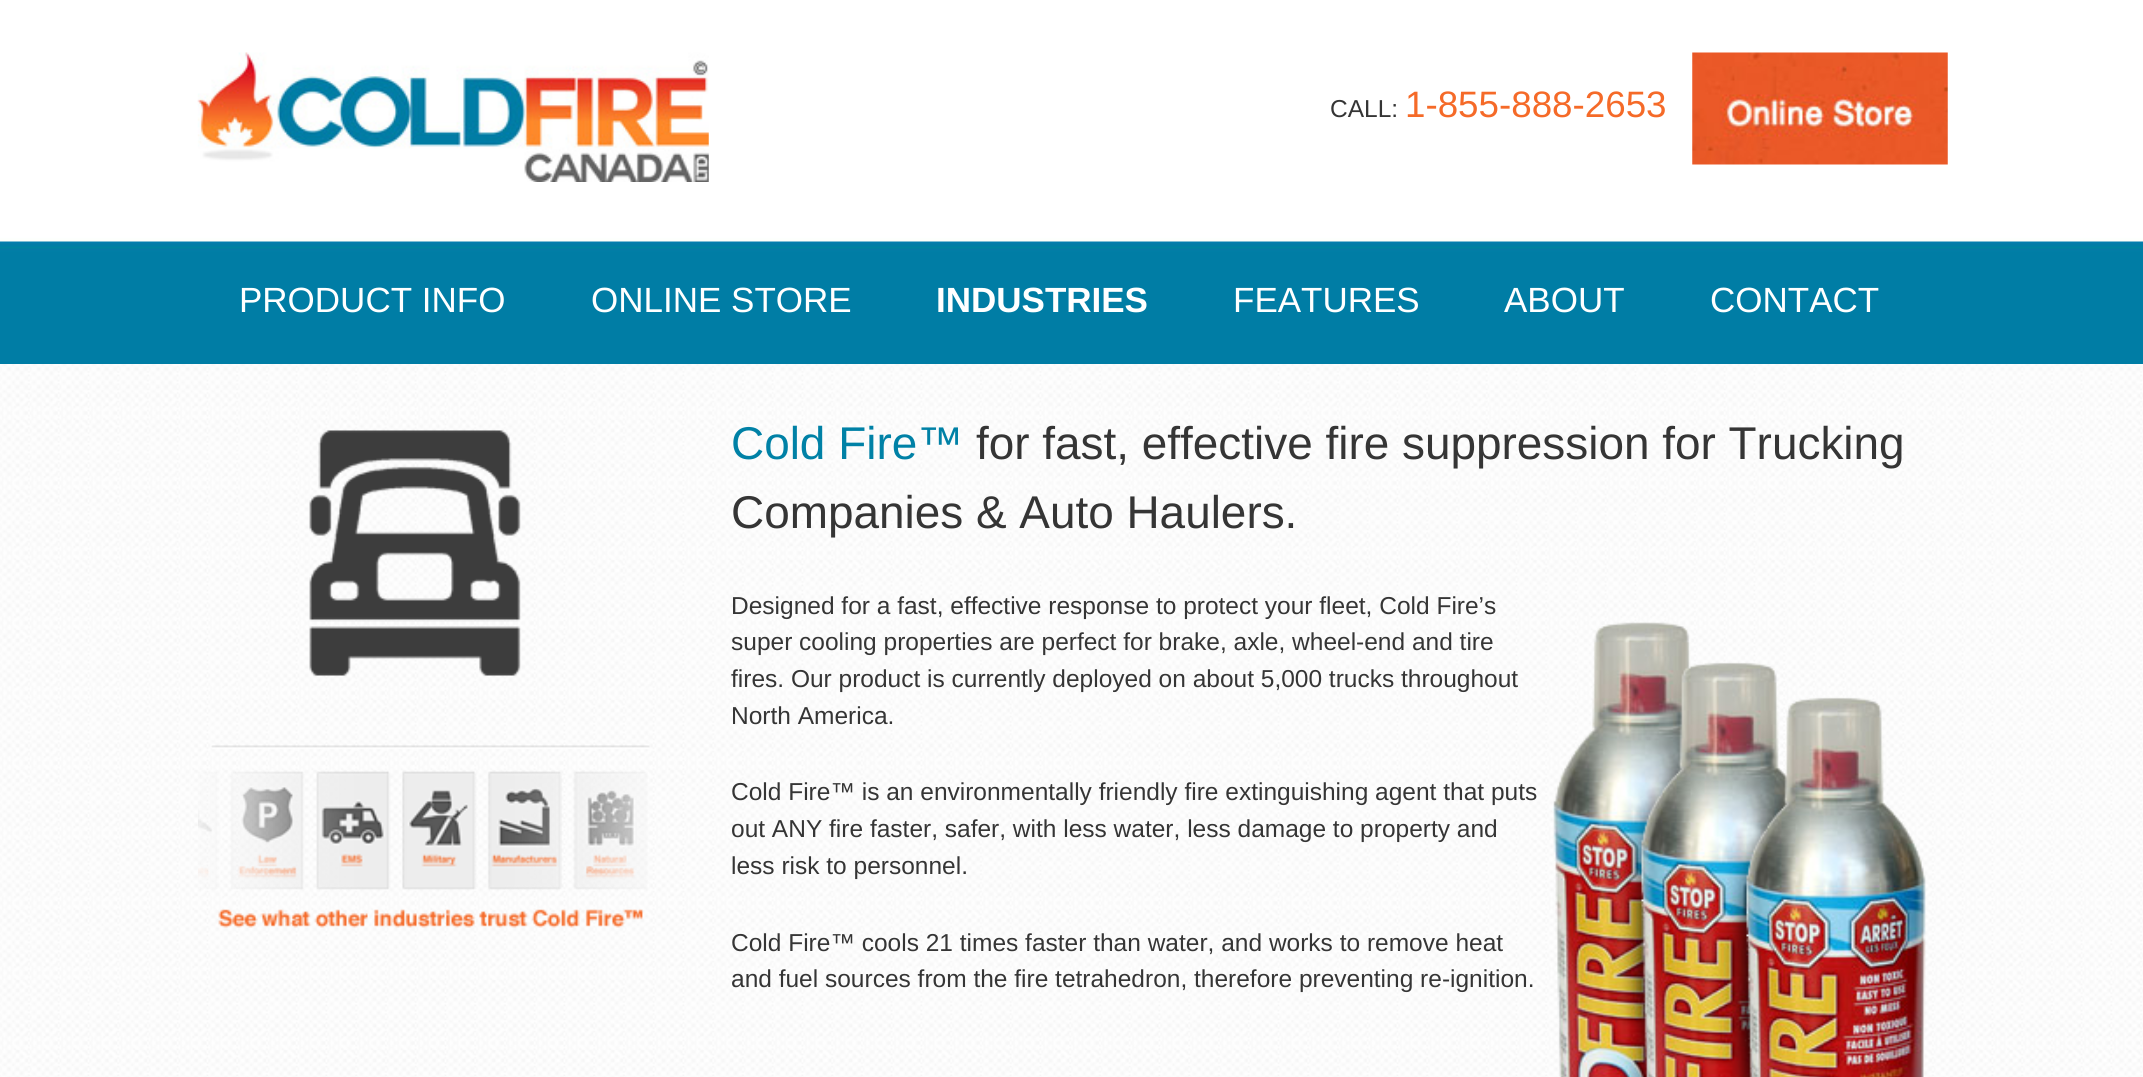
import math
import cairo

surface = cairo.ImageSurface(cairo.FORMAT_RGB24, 2143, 1077)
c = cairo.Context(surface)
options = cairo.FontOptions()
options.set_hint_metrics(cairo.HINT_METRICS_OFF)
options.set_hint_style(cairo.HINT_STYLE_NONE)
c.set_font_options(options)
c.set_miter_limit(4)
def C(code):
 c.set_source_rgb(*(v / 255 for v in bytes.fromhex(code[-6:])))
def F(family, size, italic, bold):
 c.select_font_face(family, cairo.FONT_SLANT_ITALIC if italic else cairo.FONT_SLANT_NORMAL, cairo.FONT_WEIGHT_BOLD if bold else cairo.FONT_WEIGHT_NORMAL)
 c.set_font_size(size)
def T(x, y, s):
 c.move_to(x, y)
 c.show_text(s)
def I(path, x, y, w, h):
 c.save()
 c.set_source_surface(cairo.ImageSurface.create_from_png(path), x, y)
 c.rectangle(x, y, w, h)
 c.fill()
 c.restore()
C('ffffff')
c.paint()
I('1.png',0,364,2143,713)
I('2.png',0,0,2143,364)
I('3.png',197,52,512,130)
F('Liberation Sans',24.5,0,0)
C('353535')
T(1330,117,'CALL:')
F('Liberation Sans',36.75,0,0)
C('f56a28')
T(1405,117,'1-855-888-2653')
I('4.png',1692,52,256,113)
F('Liberation Sans',35,0,0)
C('ffffff')
T(239,312,'PRODUCT INFO')
T(591,312,'ONLINE STORE')
F('Liberation Sans',35,0,1)
T(936,312,'INDUSTRIES')
F('Liberation Sans',35,0,0)
T(1233,312,'FEATURES')
T(1504,312,'ABOUT')
T(1710,312,'CONTACT')
I('5.png',309,430,212,246)
I('6.png',198,745,452,183)
F('Liberation Sans',45.9,0,0)
C('0081a6')
T(731,459,'Cold Fire™')
C('353535')
T(976,459,'for fast, effective fire suppression for Trucking')
T(731,528,'Companies & Auto Haulers.')
F('Liberation Sans',24.5,0,0)
T(731,614,'Designed for a fast, effective response to protect your fleet, Cold Fire’s')
T(731,650,'super cooling properties are perfect for brake, axle, wheel-end and tire')
T(731,687,'fires. Our product is currently deployed on about 5,000 trucks throughout')
T(731,724,'North America.')
I('7.png',1552,622,374,455)
T(731,800,'Cold Fire™ is an environmentally friendly fire extinguishing agent that puts')
T(731,837,'out ANY fire faster, safer, with less water, less damage to property and')
T(731,874,'less risk to personnel.')
T(731,951,'Cold Fire™ cools 21 times faster than water, and works to remove heat')
T(731,987,'and fuel sources from the fire tetrahedron, therefore preventing re-ignition.')
surface.write_to_png('o.png')
